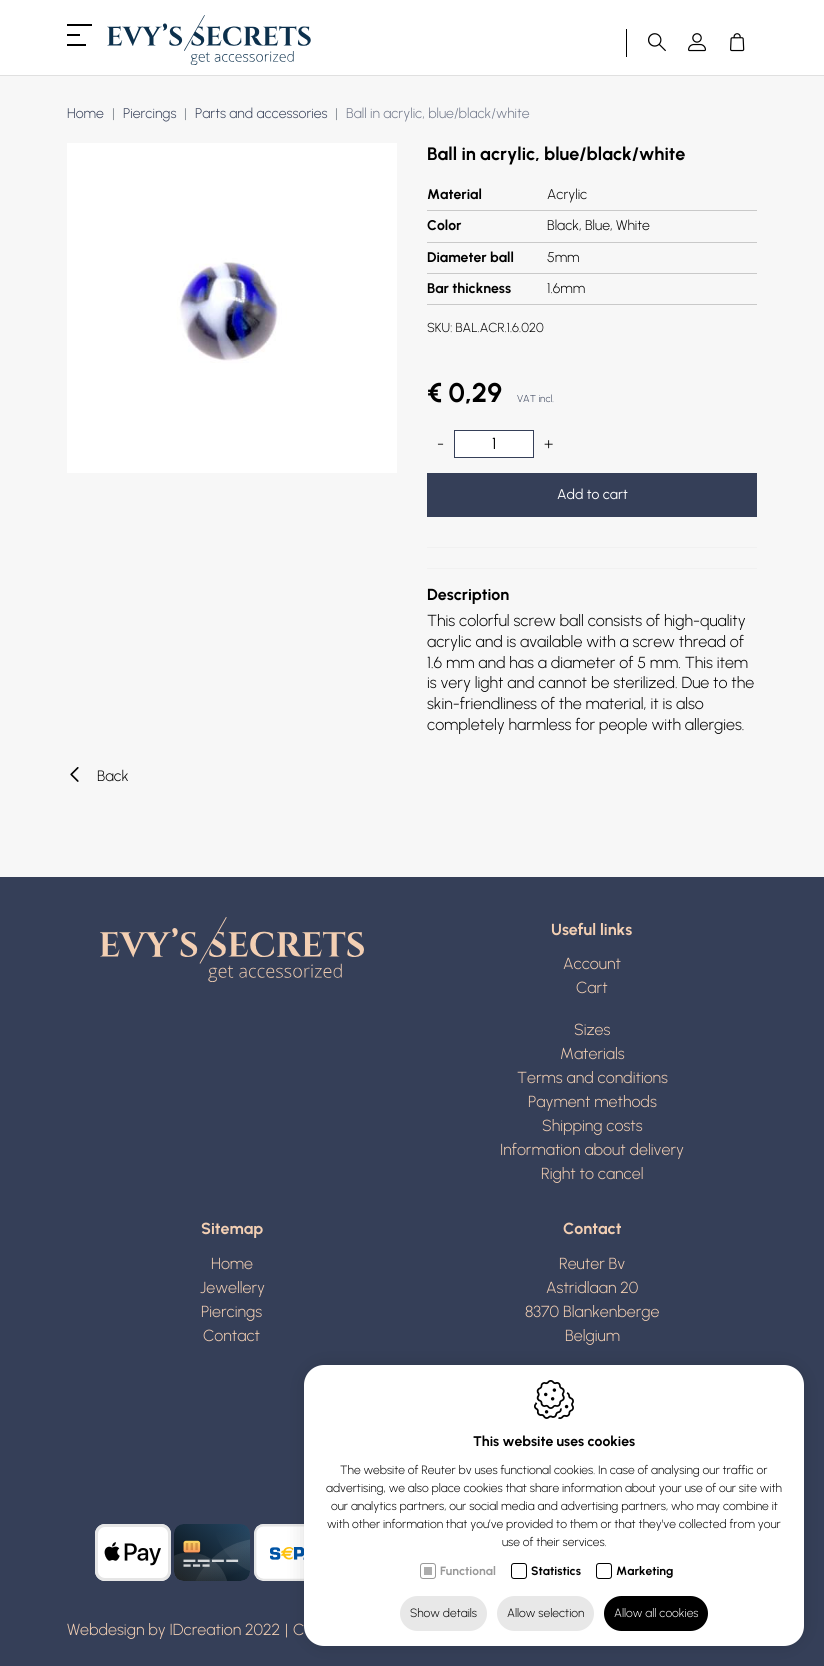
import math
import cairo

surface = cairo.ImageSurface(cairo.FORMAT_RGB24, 824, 1666)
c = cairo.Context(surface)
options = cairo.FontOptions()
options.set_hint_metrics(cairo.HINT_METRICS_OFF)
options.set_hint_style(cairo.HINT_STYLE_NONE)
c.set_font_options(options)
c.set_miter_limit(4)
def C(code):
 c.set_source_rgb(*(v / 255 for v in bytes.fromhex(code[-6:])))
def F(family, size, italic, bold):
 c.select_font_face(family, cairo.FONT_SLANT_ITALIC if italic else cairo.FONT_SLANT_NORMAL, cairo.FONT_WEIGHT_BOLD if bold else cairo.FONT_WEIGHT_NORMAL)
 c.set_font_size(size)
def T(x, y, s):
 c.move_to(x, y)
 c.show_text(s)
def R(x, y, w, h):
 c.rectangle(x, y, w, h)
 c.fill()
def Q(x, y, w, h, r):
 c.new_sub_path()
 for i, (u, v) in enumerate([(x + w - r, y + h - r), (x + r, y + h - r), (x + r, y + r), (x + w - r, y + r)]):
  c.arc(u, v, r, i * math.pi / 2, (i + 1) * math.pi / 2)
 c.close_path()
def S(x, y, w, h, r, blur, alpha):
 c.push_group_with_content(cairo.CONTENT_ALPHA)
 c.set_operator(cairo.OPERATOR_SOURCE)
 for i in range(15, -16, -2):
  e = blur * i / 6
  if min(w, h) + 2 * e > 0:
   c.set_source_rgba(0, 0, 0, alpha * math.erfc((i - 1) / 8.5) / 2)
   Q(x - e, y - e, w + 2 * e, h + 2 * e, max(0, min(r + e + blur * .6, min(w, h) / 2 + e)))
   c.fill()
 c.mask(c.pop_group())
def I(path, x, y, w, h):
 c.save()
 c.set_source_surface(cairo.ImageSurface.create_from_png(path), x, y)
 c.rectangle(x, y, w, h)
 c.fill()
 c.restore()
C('f7f7f7')
c.paint()
C('ffffff')
R(0,0,824,75)
C('e0e0e0')
R(0,75,824,1)
C('000000')
R(67,24,25,2)
R(67,34,13,2)
R(67,44,19,2)
I('1.png',107,15,204,50)
R(626,29,1,28)
I('2.png',648,33,18,19)
I('3.png',688,33,18,19)
I('4.png',730,33,15,19)
F('Urbanist Light',14,0,0)
C('353f58')
T(67,118,'Home')
C('6c757d')
T(112,118,'|')
C('353f58')
T(123,118,'Piercings')
C('6c757d')
T(184,118,'|')
C('353f58')
T(195,118,'Parts and accessories')
C('6c757d')
T(335,118,'|')
C('6f7688')
T(346,118,'Ball in acrylic, blue/black/white')
I('5.png',67,143,330,330)
F('Urbanist',18,0,1)
C('000000')
T(427,160,'Ball in acrylic, blue/black/white')
C('c9c9c9')
R(427,210,330,1)
F('Urbanist',14,0,1)
C('000000')
T(427,199,'Material')
F('Urbanist Light',14,0,0)
T(547,199,'Acrylic')
C('c9c9c9')
R(427,242,330,1)
F('Urbanist',14,0,1)
C('000000')
T(427,230,'Color')
F('Urbanist Light',14,0,0)
T(547,230,'Black, Blue, White')
C('c9c9c9')
R(427,273,330,1)
F('Urbanist',14,0,1)
C('000000')
T(427,262,'Diameter ball')
F('Urbanist Light',14,0,0)
T(547,262,'5mm')
C('c9c9c9')
R(427,304,330,1)
F('Urbanist',14,0,1)
C('000000')
T(427,293,'Bar thickness')
F('Urbanist Light',14,0,0)
T(547,293,'1.6mm')
F('Urbanist Light',13,0,0)
T(427,332,'SKU: BAL.ACR.1.6.020')
F('Urbanist',27,0,1)
T(427,402,'€ 0,29')
F('Urbanist Light',10,0,0)
C('353f58')
T(517,402,'VAT incl.')
F('Urbanist Light',16,0,0)
C('000000')
T(437,449,'-')
C('ffffff')
c.rectangle(454.5,430.5,79,27)
c.fill_preserve()
C('353f58')
c.set_line_width(1)
c.stroke()
F('Urbanist',16,0,0)
C('000000')
T(492,449,'1')
F('Urbanist Light',16,0,0)
T(544,449,'+')
C('353f58')
R(427,473,330,44)
F('Urbanist',14,0,0)
C('ffffff')
T(557,499,'Add to cart')
C('f1f1f1')
R(427,547,330,1)
R(427,568,330,1)
F('Urbanist',16,0,1)
C('000000')
T(427,600,'Description')
F('Urbanist Light',16,0,0)
T(427,626,'This colorful screw ball consists of high-quality')
T(427,647,'acrylic and is available with a screw thread of')
T(427,668,'1.6 mm and has a diameter of 5 mm. This item')
T(427,688,'is very light and cannot be sterilized. Due to the')
T(427,709,'skin-friendliness of the material, it is also')
T(427,730,'completely harmless for people with allergies.')
I('6.png',70,767,9,15)
F('Urbanist Light',15,0,0)
T(97,781,'Back')
C('353f58')
R(0,877,824,789)
I('7.png',100,917,264,65)
F('Urbanist',16,0,1)
C('f3cfb3')
T(551,935,'Useful links')
F('Urbanist Light',16,0,0)
T(563,969,'Account')
T(576,993,'Cart')
T(574,1035,'Sizes')
T(560,1059,'Materials')
T(517,1083,'Terms and conditions')
T(528,1107,'Payment methods')
T(542,1131,'Shipping costs')
T(500,1155,'Information about delivery')
T(541,1179,'Right to cancel')
F('Urbanist',16,0,1)
T(201,1234,'Sitemap')
F('Urbanist Light',16,0,0)
T(211,1269,'Home')
T(200,1293,'Jewellery')
T(201,1317,'Piercings')
T(203,1341,'Contact')
F('Urbanist',16,0,1)
T(563,1234,'Contact')
F('Urbanist Light',16,0,0)
T(559,1269,'Reuter Bv')
T(546,1293,'Astridlaan 20')
T(525,1317,'8370 Blankenberge')
T(565,1341,'Belgium')
I('8.png',95,1524,76,57)
I('9.png',174,1524,76,57)
I('10.png',254,1524,50,57)
T(67,1635,'Webdesign by IDcreation 2022')
T(285,1635,'|')
T(293,1635,'C')
C('000000')
S(305,1366,498,279,19,10,.15)
C('ffffff')
Q(304,1365,500,281,20)
c.fill()
I('11.png',534,1380,40,40)
F('Urbanist',14,0,1)
C('000000')
T(473,1446,'This website uses cookies')
F('Urbanist Light',12,0,0)
T(340,1474,'The website of Reuter bv uses functional cookies. In case of analysing our traffic or')
T(326,1492,'advertising, we also place cookies that share information about your use of our site with')
T(331,1510,'our analytics partners, our social media and advertising partners, who may combine it')
T(327,1528,'with other information that you’ve provided to them or that they’ve collected from your')
T(502,1546,'use of their services.')
Q(420.5,1563.5,15,15,2.5)
C('999999')
c.stroke()
F('Urbanist',12,0,1)
T(440,1575,'Functional')
C('adadad')
R(424,1567,8,8)
Q(511.5,1563.5,15,15,2.5)
C('000000')
c.stroke()
T(531,1575,'Statistics')
Q(596.5,1563.5,15,15,2.5)
c.stroke()
T(616,1575,'Marketing')
C('e8e8e8')
Q(400,1596,87,35,17.5)
c.fill()
F('Urbanist Light',12,0,0)
C('000000')
T(410,1617,'Show details')
C('e8e8e8')
Q(497,1596,97,35,17.5)
c.fill()
C('000000')
T(507,1617,'Allow selection')
Q(604,1596,104,35,17.5)
c.fill()
C('ffffff')
T(614,1617,'Allow all cookies')
surface.write_to_png('o.png')
